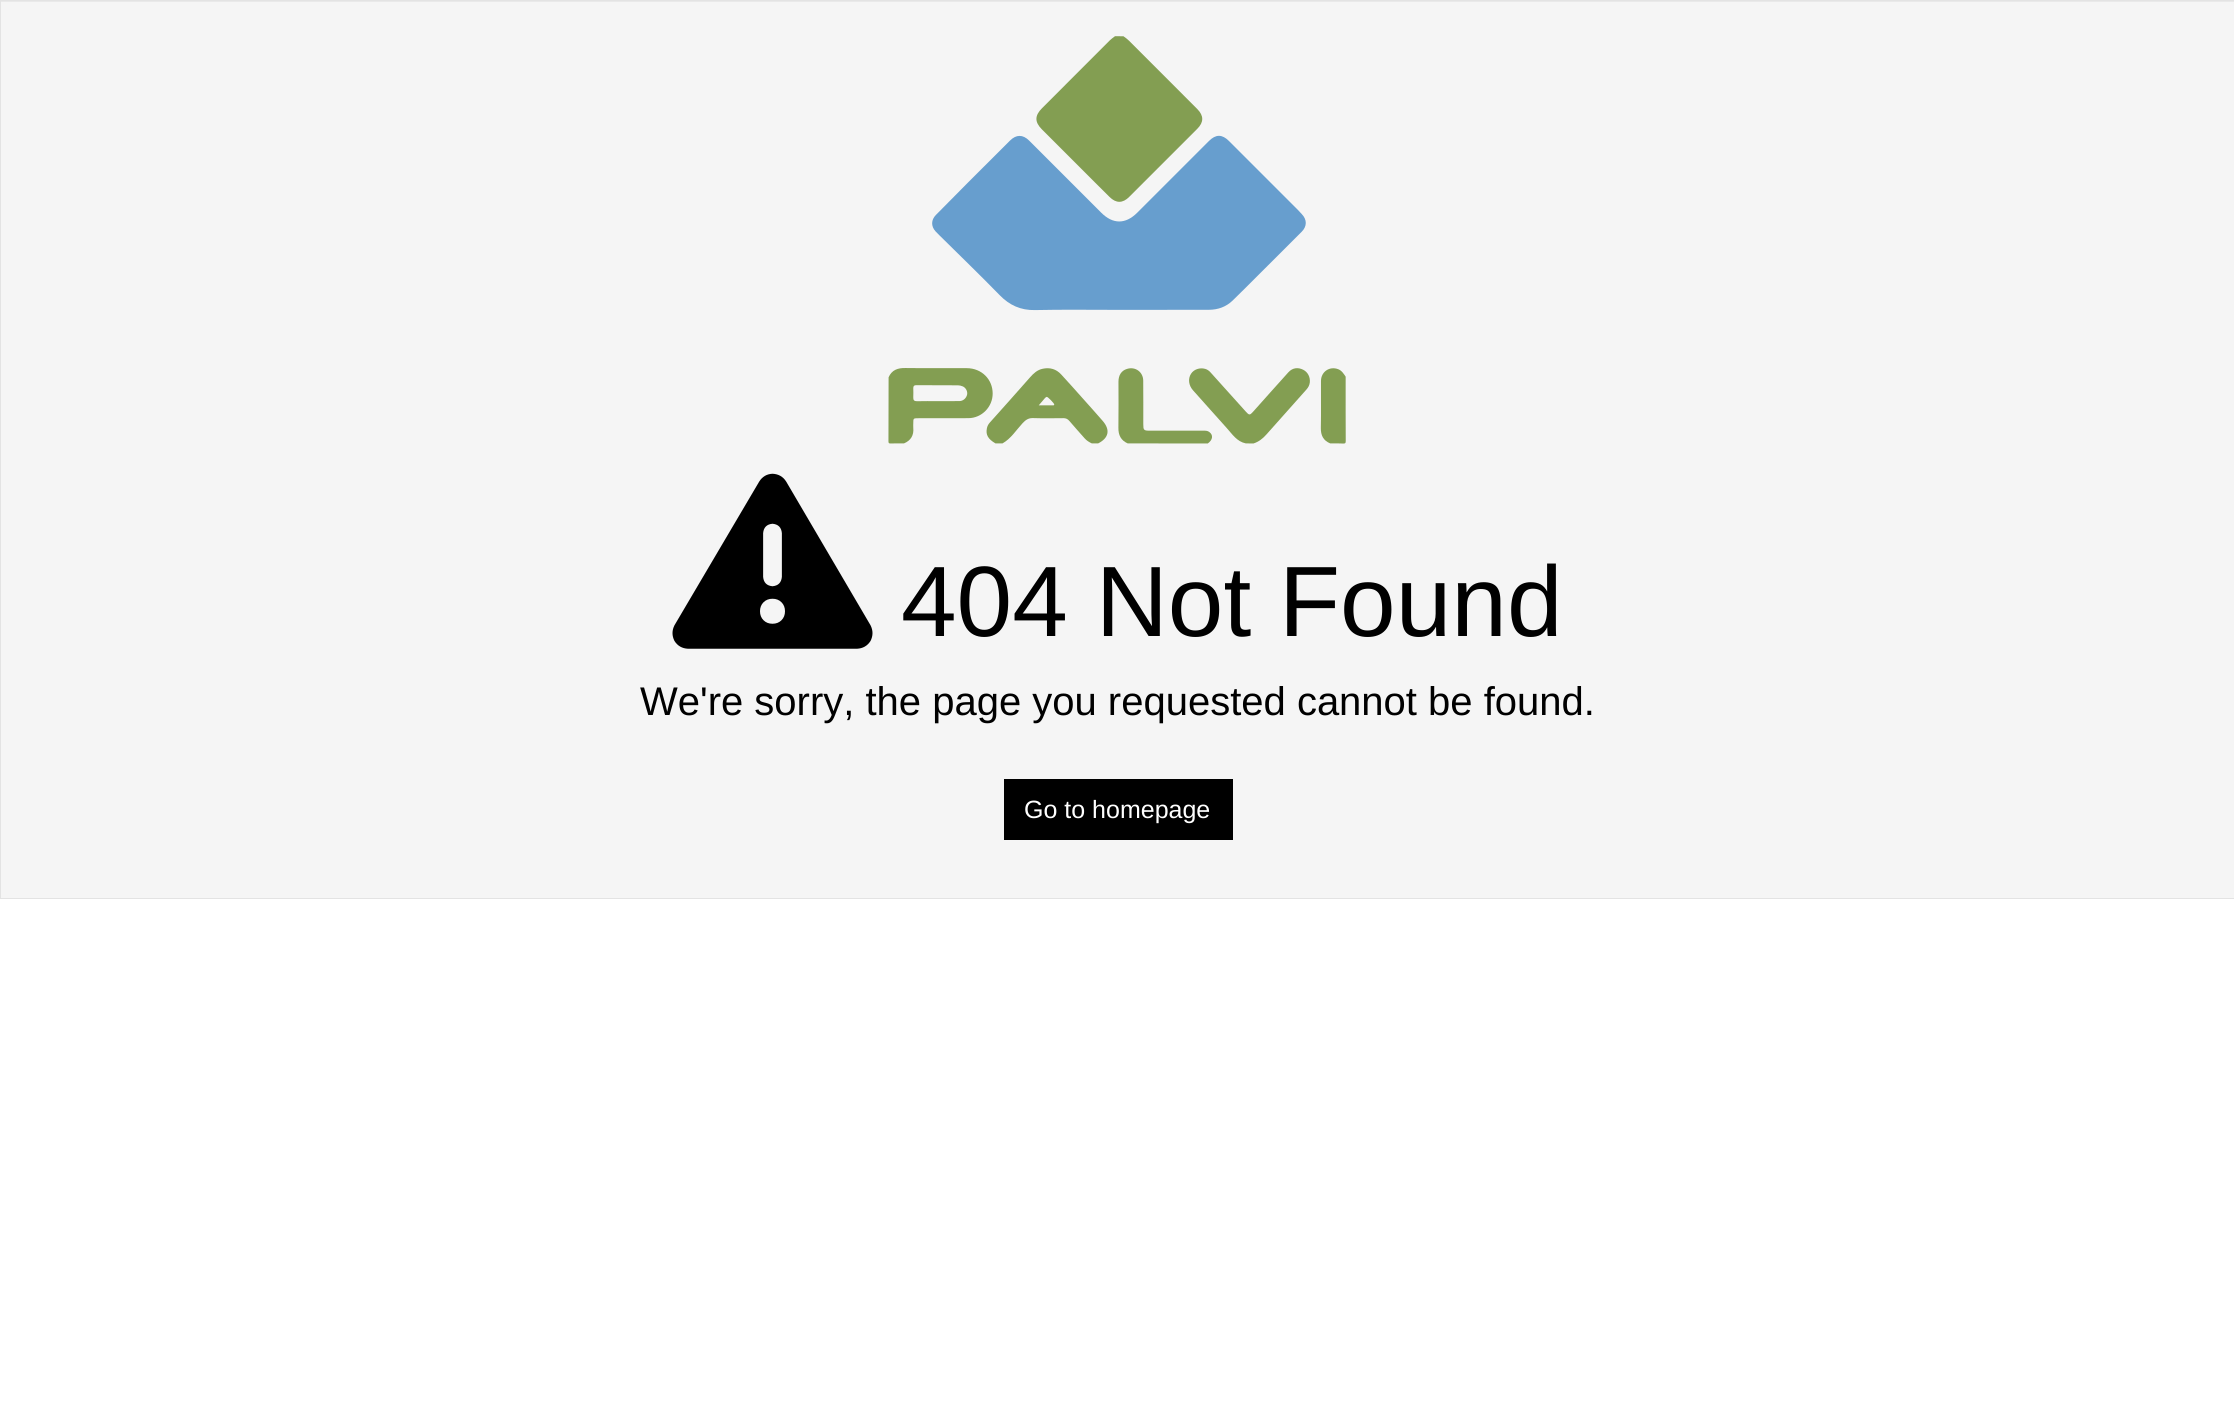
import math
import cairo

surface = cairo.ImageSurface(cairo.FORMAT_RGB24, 2234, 1405)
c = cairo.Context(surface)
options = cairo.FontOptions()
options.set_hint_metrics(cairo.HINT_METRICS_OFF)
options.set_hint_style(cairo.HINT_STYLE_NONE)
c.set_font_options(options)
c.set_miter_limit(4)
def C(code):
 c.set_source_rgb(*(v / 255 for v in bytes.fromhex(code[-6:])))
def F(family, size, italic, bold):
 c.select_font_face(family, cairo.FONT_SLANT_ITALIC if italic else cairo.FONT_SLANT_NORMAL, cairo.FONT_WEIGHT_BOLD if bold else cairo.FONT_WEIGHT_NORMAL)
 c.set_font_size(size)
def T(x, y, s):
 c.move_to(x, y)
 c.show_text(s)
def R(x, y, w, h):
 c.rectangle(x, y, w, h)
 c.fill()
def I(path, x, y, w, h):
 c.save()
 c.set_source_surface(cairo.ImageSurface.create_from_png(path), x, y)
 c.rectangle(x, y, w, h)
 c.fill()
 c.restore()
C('ffffff')
c.paint()
C('f5f5f5')
R(1,2,2233,896)
C('e9e9e9')
R(1,1,2233,1)
c.rectangle(.5,.5,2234,898)
C('e3e3e3')
c.set_line_width(1)
c.stroke()
I('1.png',888,36,458,408)
I('2.png',672,473,201,176)
F('Liberation Sans',100,0,0)
C('000000')
T(901,636,'404 Not Found')
F('Liberation Sans',40,0,0)
T(640,715,'We\'re sorry, the page you requested cannot be found.')
R(1004,779,229,61)
F('Liberation Sans',25,0,0)
C('ffffff')
T(1024,818,'Go to homepage')
surface.write_to_png('o.png')
